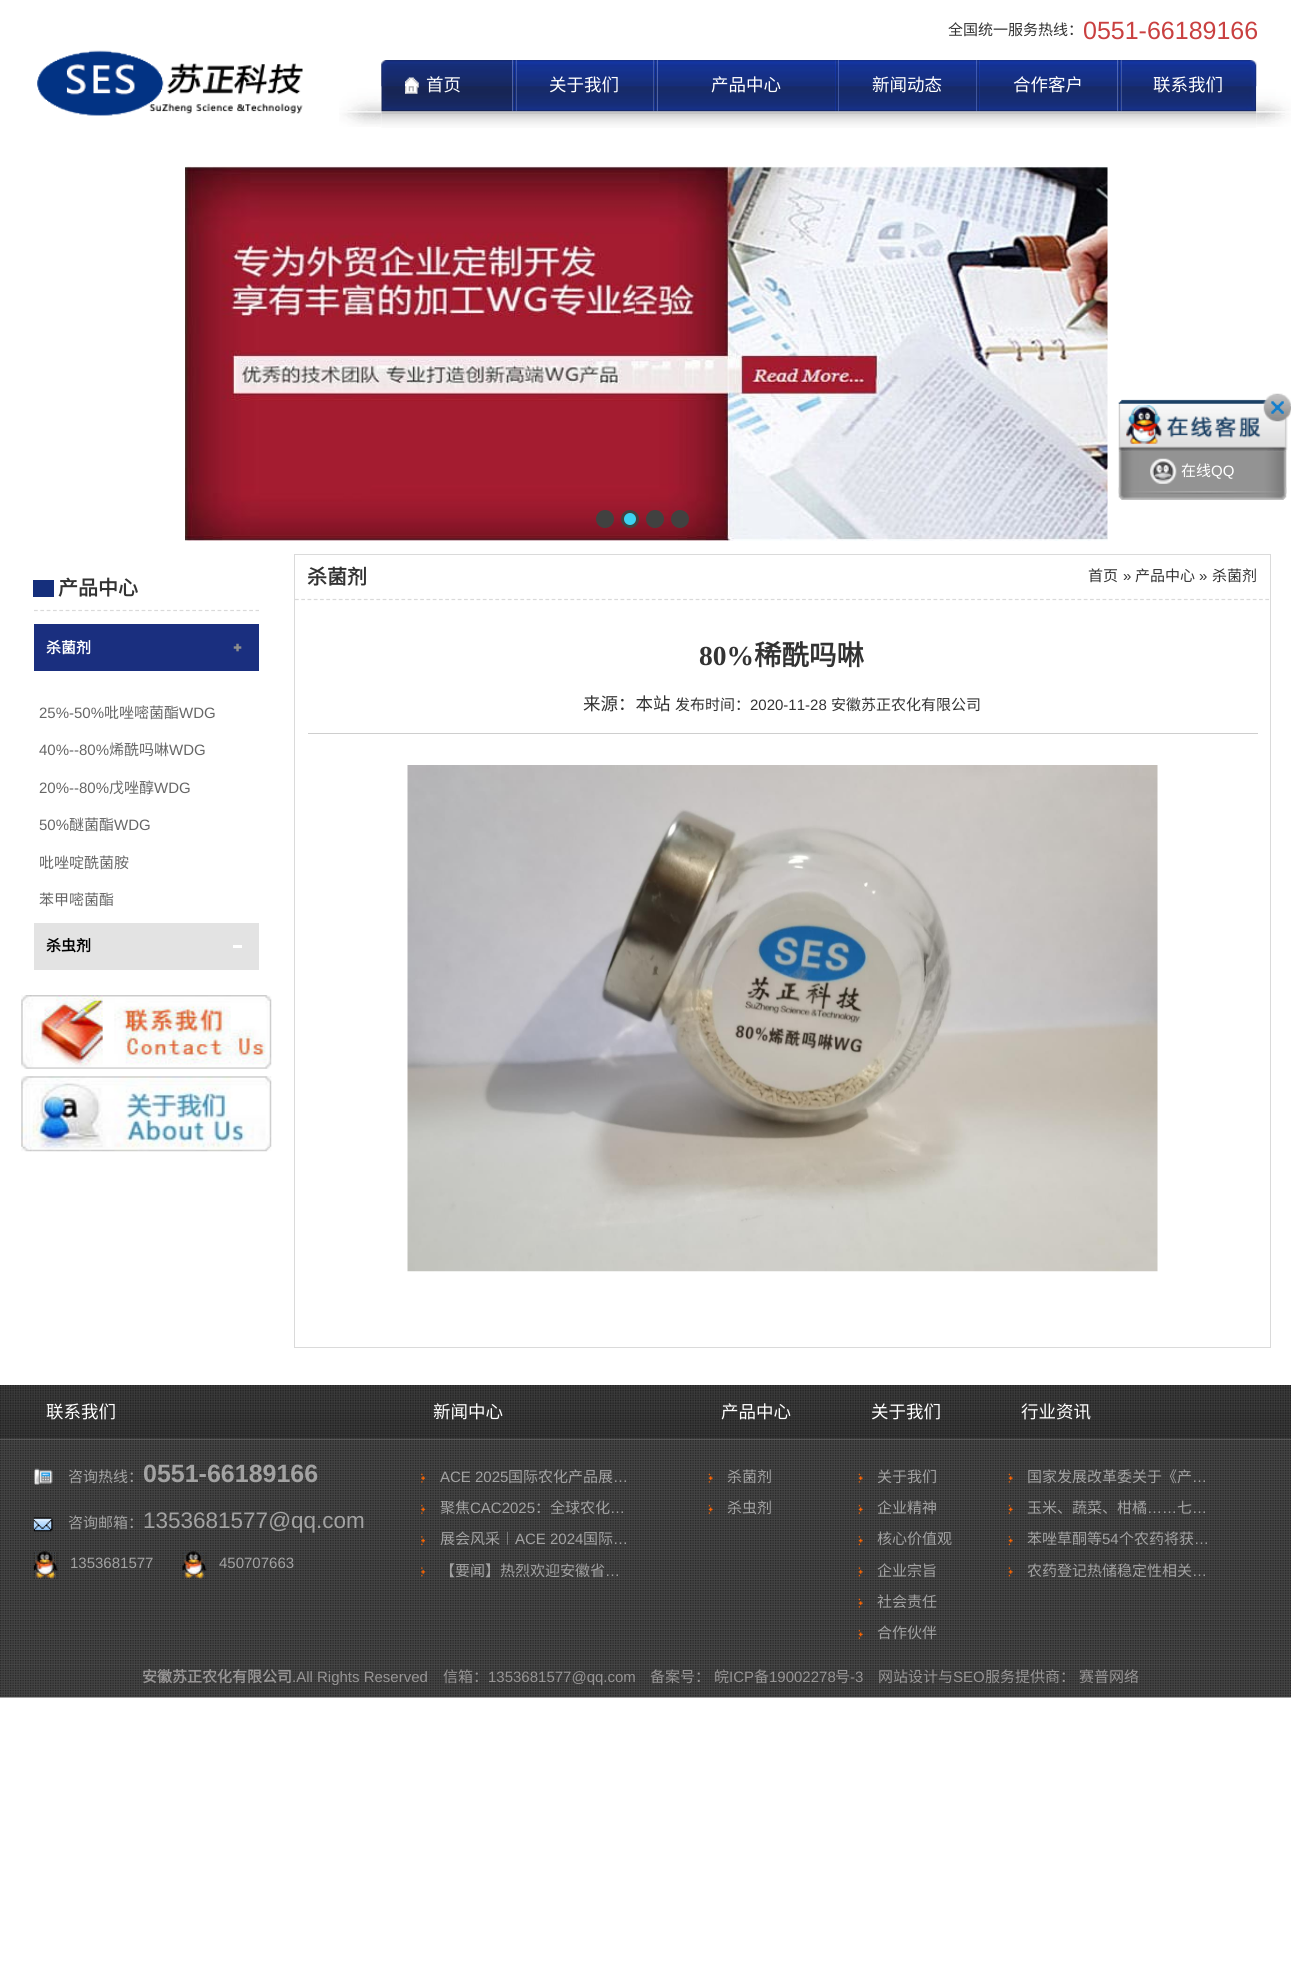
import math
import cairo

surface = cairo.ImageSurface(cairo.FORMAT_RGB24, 1291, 1969)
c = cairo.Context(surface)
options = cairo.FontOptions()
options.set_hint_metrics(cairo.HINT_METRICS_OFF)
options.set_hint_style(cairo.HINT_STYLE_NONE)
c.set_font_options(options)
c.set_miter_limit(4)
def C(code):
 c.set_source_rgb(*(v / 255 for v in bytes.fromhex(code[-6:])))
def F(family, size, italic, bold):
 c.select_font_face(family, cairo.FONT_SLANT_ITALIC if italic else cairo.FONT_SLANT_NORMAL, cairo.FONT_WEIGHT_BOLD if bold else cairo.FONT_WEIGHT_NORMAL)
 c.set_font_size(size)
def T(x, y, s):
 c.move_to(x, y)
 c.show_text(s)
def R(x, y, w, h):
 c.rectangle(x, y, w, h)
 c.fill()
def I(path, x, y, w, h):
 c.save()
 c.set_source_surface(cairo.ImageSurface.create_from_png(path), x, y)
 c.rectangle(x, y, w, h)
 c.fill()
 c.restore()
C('ffffff')
c.paint()
F('Noto Sans CJK SC',15,0,0)
C('333333')
T(948,35,'全国统一服务热线：')
F('Liberation Sans',25,0,0)
C('c94040')
T(1083,39,'0551-66189166')
I('1.png',37,50,266,66)
I('16.png',381,111,876,17)
I('3.png',381,60,132,52)
I('2.png',339,86,43,41)
I('4.png',405,77,14,17)
F('Noto Sans CJK SC',17.5,0,0)
C('ffffff')
T(426,91,'首页')
I('6.png',516,60,138,52)
I('5.png',512,60,5,52)
T(549,91,'关于我们')
I('8.png',657,60,178,52)
I('7.png',653,60,5,52)
T(711,91,'产品中心')
I('10.png',838,60,139,52)
I('9.png',835,60,4,52)
T(872,91,'新闻动态')
I('11.png',976,60,4,52)
I('12.png',980,60,138,52)
T(1013,91,'合作客户')
I('14.png',1121,60,136,52)
I('13.png',1117,60,5,52)
T(1153,91,'联系我们')
I('15.png',1256,86,35,41)
I('17.png',185,166,923,375)
C('414140')
c.arc(605,519,7.5,0,2 * math.pi)
c.fill_preserve()
c.set_line_width(3)
c.stroke()
C('3cd2f1')
c.arc(630,519,7.5,0,2 * math.pi)
c.fill_preserve()
C('414140')
c.stroke()
c.arc(655,519,7.5,0,2 * math.pi)
c.fill_preserve()
c.stroke()
c.arc(680,519,7.5,0,2 * math.pi)
c.fill_preserve()
c.stroke()
I('18.png',1118,393,173,59)
I('19.png',1118,493,169,7)
C('939393')
R(1119,451,167,43)
I('20.png',1118,451,169,43)
I('21.png',1118,487,169,7)
I('22.png',1150,458,27,26)
F('Noto Sans CJK SC',15,0,0)
C('ffffff')
T(1181,476,'在线')
F('Liberation Sans',15,0,0)
T(1211,476,'QQ')
C('152f7c')
R(33,580,21,17)
c.new_path()
c.move_to(34,610.5)
c.line_to(259,610.5)
C('dadada')
c.set_line_width(1.2)
c.set_dash([3.75,2.58])
c.stroke()
F('Noto Sans CJK SC',20,0,1)
C('333333')
T(58,595,'产品中心')
C('1a2f7f')
R(34,624,225,47)
I('23.png',233,643,9,9)
F('Noto Sans CJK SC',15,0,1)
C('ffffff')
T(46,653,'杀菌剂')
F('Liberation Sans',15,0,0)
C('666666')
T(39,718,'25%-50%')
F('Noto Sans CJK SC',15,0,0)
T(104,718,'吡唑嘧菌酯')
F('Liberation Sans',15,0,0)
T(179,718,'WDG')
T(39,755,'40%--80%')
F('Noto Sans CJK SC',15,0,0)
T(109,755,'烯酰吗啉')
F('Liberation Sans',15,0,0)
T(169,755,'WDG')
T(39,793,'20%--80%')
F('Noto Sans CJK SC',15,0,0)
T(109,793,'戊唑醇')
F('Liberation Sans',15,0,0)
T(154,793,'WDG')
T(39,830,'50%')
F('Noto Sans CJK SC',15,0,0)
T(69,830,'醚菌酯')
F('Liberation Sans',15,0,0)
T(114,830,'WDG')
F('Noto Sans CJK SC',15,0,0)
T(39,868,'吡唑啶酰菌胺')
T(39,905,'苯甲嘧菌酯')
C('e3e3e3')
R(34,923,225,47)
C('ffffff')
R(233,945,9,3)
F('Noto Sans CJK SC',15,0,1)
C('000000')
T(46,951,'杀虫剂')
I('24.png',21,995,251,74)
I('25.png',21,1076,251,76)
c.rectangle(294.5,554.5,976,793)
C('dadada')
c.set_line_width(1)
c.set_dash([])
c.stroke()
c.new_path()
c.move_to(295,599.5)
c.line_to(1270,599.5)
c.set_line_width(1.2)
c.set_dash([3.75,2.51])
c.stroke()
F('Noto Sans CJK SC',20,0,1)
C('333333')
T(307,584,'杀菌剂')
F('Noto Sans CJK SC',15,0,0)
T(1088,581,'首页')
F('Liberation Sans',15,0,0)
T(1123,581,'»')
F('Noto Sans CJK SC',15,0,0)
T(1135,581,'产品中心')
F('Liberation Sans',15,0,0)
T(1199,581,'»')
F('Noto Sans CJK SC',15,0,0)
T(1212,581,'杀菌剂')
F('Liberation Serif',27.5,0,1)
T(699,665,'80%')
F('Noto Sans CJK SC',27.5,0,1)
T(754,665,'稀酰吗啉')
F('Noto Sans CJK SC',17.5,0,0)
T(583,710,'来源：本站')
F('Noto Sans CJK SC',15,0,0)
T(675,710,'发布时间：')
F('Liberation Sans',15,0,0)
T(750,710,'2020-11-28')
F('Noto Sans CJK SC',15,0,0)
T(831,710,'安徽苏正农化有限公司')
C('cecece')
R(308,733,950,1)
I('26.png',407,765,751,507)
I('27.png',0,1385,1291,313)
F('Noto Sans CJK SC',17.5,0,0)
C('ffffff')
T(46,1418,'联系我们')
I('28.png',33,1468,20,17)
F('Noto Sans CJK SC',15,0,0)
C('a2a2a2')
T(68,1482,'咨询热线：')
F('Liberation Sans',25,0,1)
T(143,1482,'0551-66189166')
I('29.png',33,1517,20,15)
F('Noto Sans CJK SC',15,0,0)
T(68,1528,'咨询邮箱：')
F('Liberation Sans',22.5,0,0)
T(143,1528,'1353681577@qq.com')
I('30.png',33,1551,25,28)
F('Liberation Sans',15,0,0)
T(70,1568,'1353681577')
I('31.png',182,1551,25,28)
T(219,1568,'450707663')
F('Noto Sans CJK SC',17.5,0,0)
C('ffffff')
T(433,1418,'新闻中心')
I('32.png',421,1473,5,10)
F('Liberation Sans',15,0,0)
C('a2a2a2')
T(440,1482,'ACE 2025')
F('Noto Sans CJK SC',15,0,0)
T(508,1482,'国际农化产品展')
F('Liberation Sans',15,0,0)
T(613,1482,'…')
I('33.png',421,1504,5,10)
F('Noto Sans CJK SC',15,0,0)
T(440,1513,'聚焦')
F('Liberation Sans',15,0,0)
T(470,1513,'CAC2025')
F('Noto Sans CJK SC',15,0,0)
T(535,1513,'：全球农化')
F('Liberation Sans',15,0,0)
T(610,1513,'…')
I('34.png',421,1536,5,10)
F('Noto Sans CJK SC',15,0,0)
T(440,1544,'展会风采︱')
F('Liberation Sans',15,0,0)
T(515,1544,'ACE 2024')
F('Noto Sans CJK SC',15,0,0)
T(583,1544,'国际')
F('Liberation Sans',15,0,0)
T(613,1544,'…')
I('35.png',421,1567,5,10)
F('Noto Sans CJK SC',15,0,0)
T(440,1576,'【要闻】热烈欢迎安徽省')
F('Liberation Sans',15,0,0)
T(605,1576,'…')
F('Noto Sans CJK SC',17.5,0,0)
C('ffffff')
T(721,1418,'产品中心')
I('36.png',708,1473,5,10)
F('Noto Sans CJK SC',15,0,0)
C('a2a2a2')
T(727,1482,'杀菌剂')
I('37.png',708,1504,5,10)
T(727,1513,'杀虫剂')
F('Noto Sans CJK SC',17.5,0,0)
C('ffffff')
T(871,1418,'关于我们')
I('36.png',858,1473,5,10)
F('Noto Sans CJK SC',15,0,0)
C('a2a2a2')
T(877,1482,'关于我们')
I('38.png',858,1504,5,10)
T(877,1513,'企业精神')
I('39.png',858,1536,5,10)
T(877,1544,'核心价值观')
I('40.png',858,1567,5,10)
T(877,1576,'企业宗旨')
I('41.png',858,1598,5,10)
T(877,1607,'社会责任')
I('42.png',858,1629,5,10)
T(877,1638,'合作伙伴')
F('Noto Sans CJK SC',17.5,0,0)
C('ffffff')
T(1021,1418,'行业资讯')
I('36.png',1008,1473,5,10)
F('Noto Sans CJK SC',15,0,0)
C('a2a2a2')
T(1027,1482,'国家发展改革委关于《产')
F('Liberation Sans',15,0,0)
T(1192,1482,'…')
I('38.png',1008,1504,5,10)
F('Noto Sans CJK SC',15,0,0)
T(1027,1513,'玉米、蔬菜、柑橘')
F('Liberation Sans',15,0,0)
T(1147,1513,'……')
F('Noto Sans CJK SC',15,0,0)
T(1177,1513,'七')
F('Liberation Sans',15,0,0)
T(1192,1513,'…')
I('39.png',1008,1536,5,10)
F('Noto Sans CJK SC',15,0,0)
T(1027,1544,'苯唑草酮等')
F('Liberation Sans',15,0,0)
T(1102,1544,'54')
F('Noto Sans CJK SC',15,0,0)
T(1119,1544,'个农药将获')
F('Liberation Sans',15,0,0)
T(1194,1544,'…')
I('40.png',1008,1567,5,10)
F('Noto Sans CJK SC',15,0,0)
T(1027,1576,'农药登记热储稳定性相关')
F('Liberation Sans',15,0,0)
T(1192,1576,'…')
F('Noto Sans CJK SC',15,0,1)
C('979595')
T(142,1682,'安徽苏正农化有限公司')
F('Liberation Sans',15,0,0)
T(292,1682,'.All Rights Reserved')
F('Noto Sans CJK SC',15,0,0)
T(443,1682,'信箱：')
F('Liberation Sans',15,0,0)
T(488,1682,'1353681577@qq.com')
F('Noto Sans CJK SC',15,0,0)
T(650,1682,'备案号：')
T(714,1682,'皖')
F('Liberation Sans',15,0,0)
T(729,1682,'ICP')
F('Noto Sans CJK SC',15,0,0)
T(754,1682,'备')
F('Liberation Sans',15,0,0)
T(769,1682,'19002278')
F('Noto Sans CJK SC',15,0,0)
T(835,1682,'号')
F('Liberation Sans',15,0,0)
T(850,1682,'-3')
F('Noto Sans CJK SC',15,0,0)
T(878,1682,'网站设计与')
F('Liberation Sans',15,0,0)
T(953,1682,'SEO')
F('Noto Sans CJK SC',15,0,0)
T(985,1682,'服务提供商：')
T(1079,1682,'赛普网络')
surface.write_to_png('o.png')
